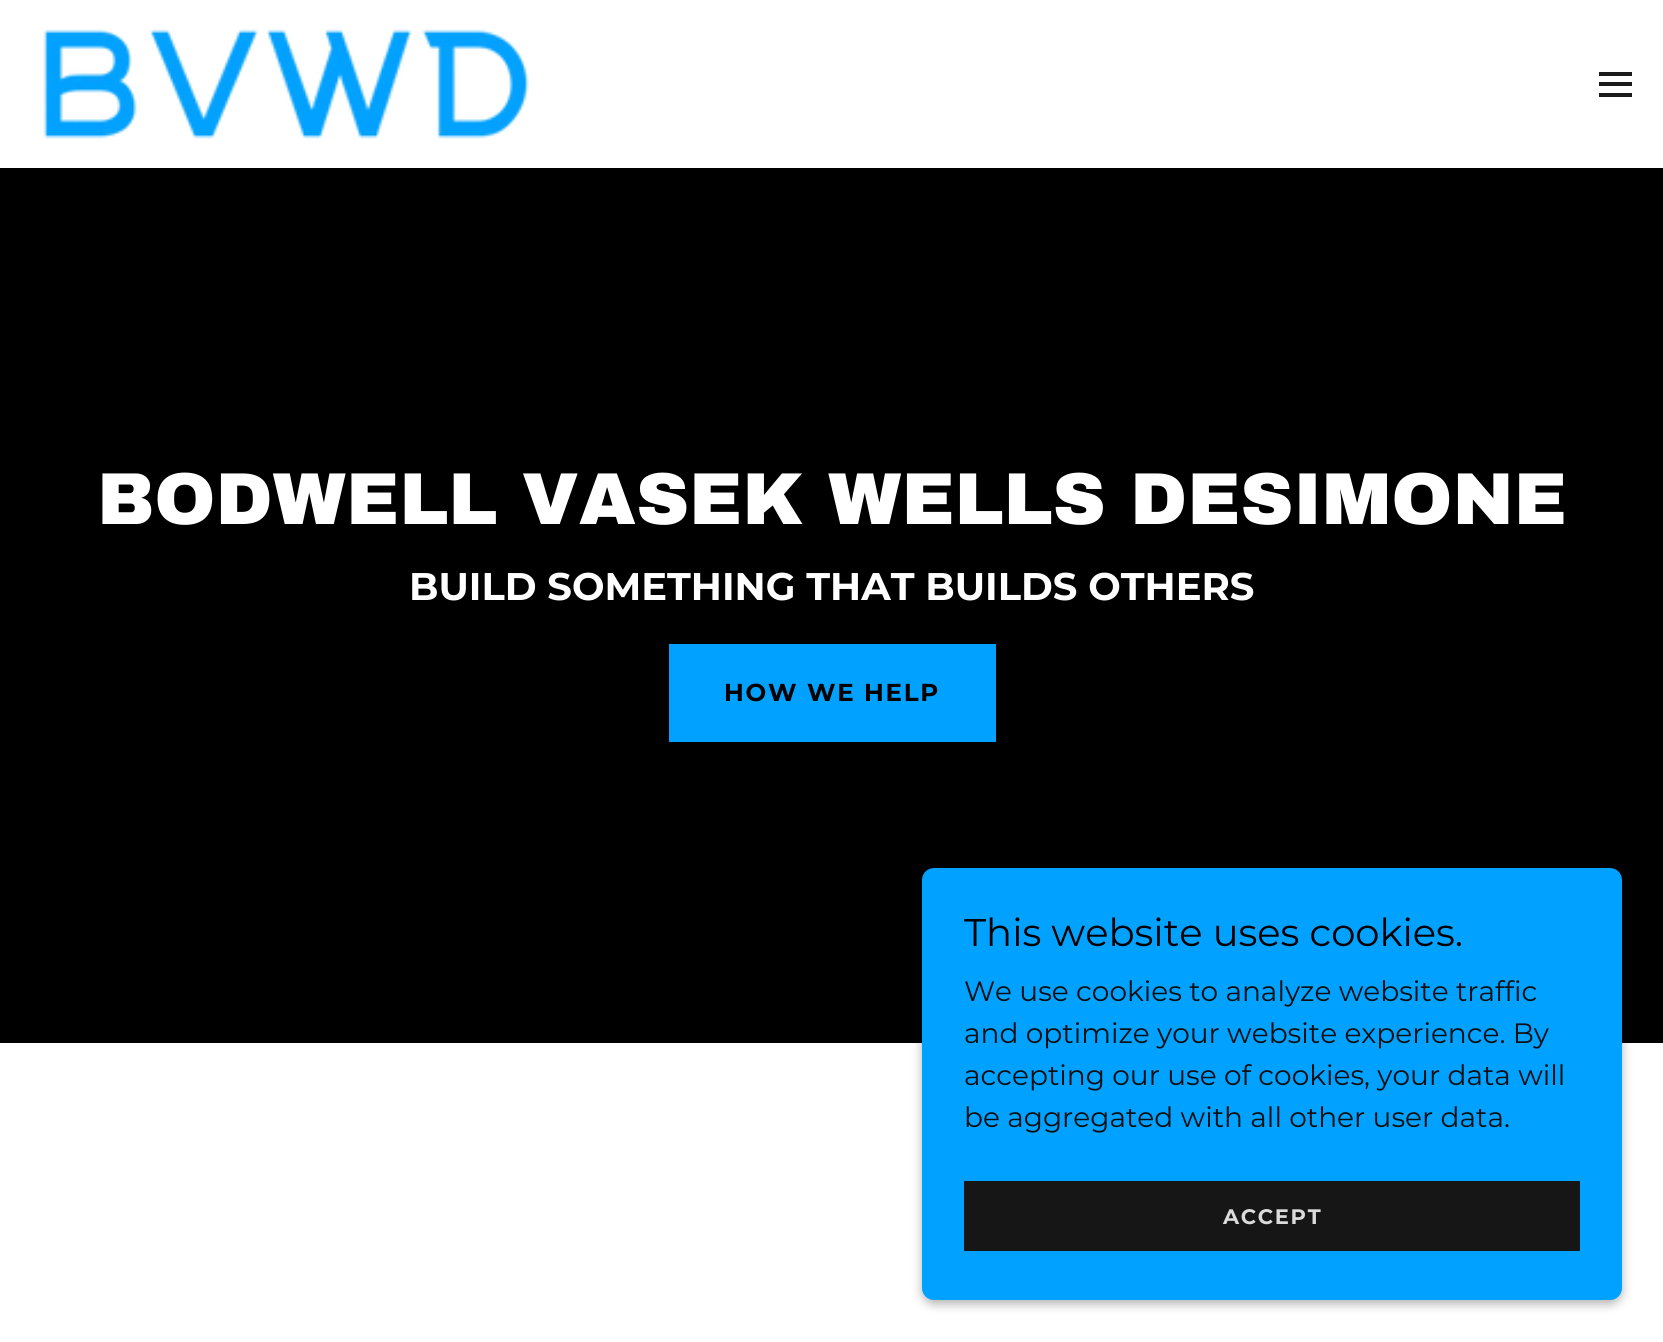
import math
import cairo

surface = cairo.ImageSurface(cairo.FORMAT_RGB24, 1663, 1342)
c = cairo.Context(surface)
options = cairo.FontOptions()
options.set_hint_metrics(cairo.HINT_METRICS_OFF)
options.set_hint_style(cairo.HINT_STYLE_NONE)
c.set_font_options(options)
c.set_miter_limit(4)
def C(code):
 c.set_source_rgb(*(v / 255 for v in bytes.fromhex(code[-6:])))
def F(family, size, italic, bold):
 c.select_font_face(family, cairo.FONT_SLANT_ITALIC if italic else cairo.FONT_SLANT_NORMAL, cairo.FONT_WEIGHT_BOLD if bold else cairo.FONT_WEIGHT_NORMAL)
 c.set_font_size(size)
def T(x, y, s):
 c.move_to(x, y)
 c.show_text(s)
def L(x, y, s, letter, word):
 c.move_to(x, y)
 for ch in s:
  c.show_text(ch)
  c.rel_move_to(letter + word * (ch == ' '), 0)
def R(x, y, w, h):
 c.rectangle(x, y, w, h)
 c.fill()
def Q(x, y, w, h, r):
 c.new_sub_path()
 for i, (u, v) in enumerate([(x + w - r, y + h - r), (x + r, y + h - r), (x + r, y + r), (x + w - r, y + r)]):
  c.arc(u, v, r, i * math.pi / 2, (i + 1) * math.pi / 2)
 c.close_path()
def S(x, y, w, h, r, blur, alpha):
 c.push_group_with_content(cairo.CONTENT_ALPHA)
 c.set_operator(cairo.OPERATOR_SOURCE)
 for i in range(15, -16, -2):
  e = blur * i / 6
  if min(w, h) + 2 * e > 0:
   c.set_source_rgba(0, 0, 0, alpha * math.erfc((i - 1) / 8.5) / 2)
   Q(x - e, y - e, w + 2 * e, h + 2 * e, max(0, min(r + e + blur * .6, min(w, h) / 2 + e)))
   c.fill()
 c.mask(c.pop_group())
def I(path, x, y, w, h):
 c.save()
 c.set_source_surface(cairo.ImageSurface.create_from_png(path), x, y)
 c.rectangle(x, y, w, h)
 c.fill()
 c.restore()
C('ffffff')
c.paint()
I('1.png',43,29,486,110)
C('1b1b1b')
R(1599,72,33,4)
R(1599,82,33,4)
R(1599,93,33,4)
C('000000')
R(0,168,1663,875)
F('Archivo Black Black',73.5,0,0)
C('ffffff')
T(97,524,'BODWELL VASEK WELLS DESIMONE')
F('Montserrat',38.5,0,1)
T(409,600,'BUILD SOMETHING THAT BUILDS OTHERS')
C('00a1ff')
R(669,644,327,98)
F('Montserrat',24.5,0,1)
C('000000')
L(724,701,'HOW WE HELP',1.75,0)
C('000000')
S(922,872,700,432,12,5,.3)
C('00a1ff')
Q(922,868,700,432,12)
c.fill()
F('Montserrat',38.5,0,0)
C('000000')
T(964,946,'This website uses cookies.')
F('Montserrat',28,0,0)
C('0d0e0f')
T(964,1001,'We use cookies to analyze website traffic')
T(964,1043,'and optimize your website experience. By')
T(964,1085,'accepting our use of cookies, your data will')
T(964,1127,'be aggregated with all other user data.')
C('161616')
R(964,1181,616,70)
F('Montserrat',21,0,1)
C('dbdbdb')
L(1223,1224,'ACCEPT',1.75,0)
surface.write_to_png('o.png')
